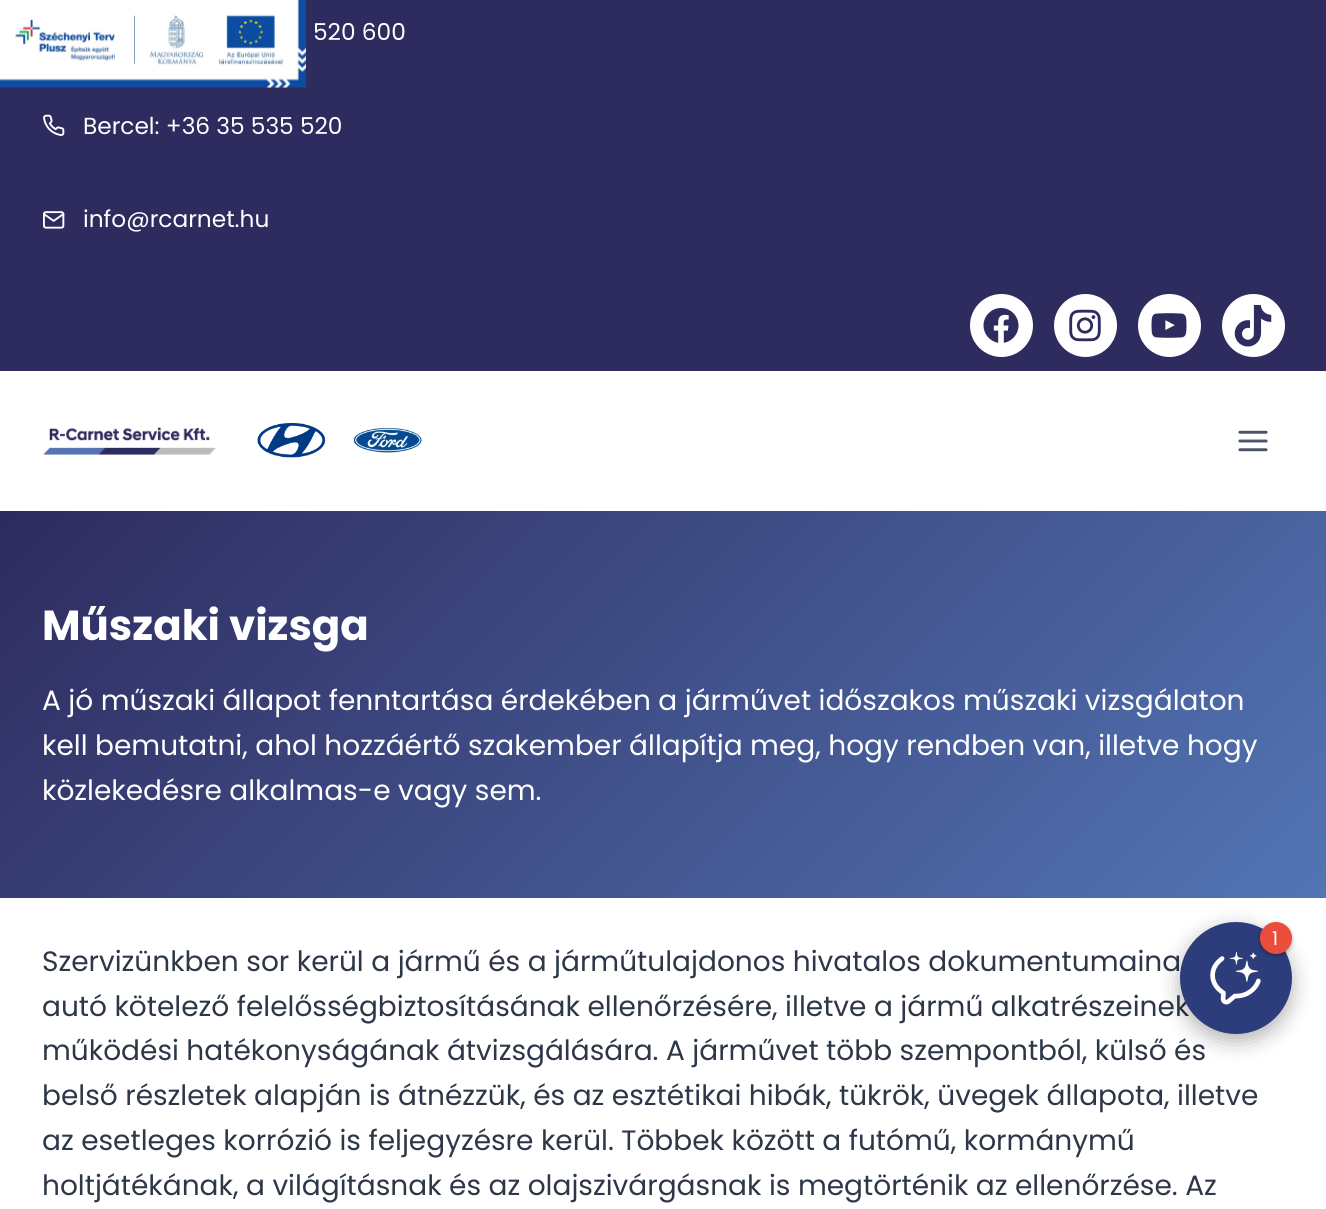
import math
import cairo

surface = cairo.ImageSurface(cairo.FORMAT_RGB24, 1326, 1209)
c = cairo.Context(surface)
options = cairo.FontOptions()
options.set_hint_metrics(cairo.HINT_METRICS_OFF)
options.set_hint_style(cairo.HINT_STYLE_NONE)
c.set_font_options(options)
c.set_miter_limit(4)
def C(code):
 c.set_source_rgb(*(v / 255 for v in bytes.fromhex(code[-6:])))
def F(family, size, italic, bold):
 c.select_font_face(family, cairo.FONT_SLANT_ITALIC if italic else cairo.FONT_SLANT_NORMAL, cairo.FONT_WEIGHT_BOLD if bold else cairo.FONT_WEIGHT_NORMAL)
 c.set_font_size(size)
def T(x, y, s):
 c.move_to(x, y)
 c.show_text(s)
def R(x, y, w, h):
 c.rectangle(x, y, w, h)
 c.fill()
def Q(x, y, w, h, r):
 c.new_sub_path()
 for i, (u, v) in enumerate([(x + w - r, y + h - r), (x + r, y + h - r), (x + r, y + r), (x + w - r, y + r)]):
  c.arc(u, v, r, i * math.pi / 2, (i + 1) * math.pi / 2)
 c.close_path()
def S(x, y, w, h, r, blur, alpha):
 c.push_group_with_content(cairo.CONTENT_ALPHA)
 c.set_operator(cairo.OPERATOR_SOURCE)
 for i in range(15, -16, -2):
  e = blur * i / 6
  if min(w, h) + 2 * e > 0:
   c.set_source_rgba(0, 0, 0, alpha * math.erfc((i - 1) / 8.5) / 2)
   Q(x - e, y - e, w + 2 * e, h + 2 * e, max(0, min(r + e + blur * .6, min(w, h) / 2 + e)))
   c.fill()
 c.mask(c.pop_group())
def I(path, x, y, w, h):
 c.save()
 c.set_source_surface(cairo.ImageSurface.create_from_png(path), x, y)
 c.rectangle(x, y, w, h)
 c.fill()
 c.restore()
C('ffffff')
c.paint()
C('2e2b5e')
R(0,0,1326,371)
I('1.png',0,0,306,88)
F('Poppins',23.25,0,0)
C('ffffff')
T(313,40,'520 600')
I('2.png',43,114,22,22)
T(83,134,'Bercel: +36 35 535 520')
I('3.png',43,211,22,18)
T(83,227,'info@rcarnet.hu')
c.new_path()
c.arc(1001.5,325.5,31.5,0,2 * math.pi)
c.fill()
I('4.png',983,308,36,35)
c.arc(1085.5,325.5,31.5,0,2 * math.pi)
c.fill()
I('5.png',1069,309,32,33)
c.arc(1169.5,325.5,31.5,0,2 * math.pi)
c.fill()
I('6.png',1151,313,36,25)
c.arc(1253.5,325.5,31.5,0,2 * math.pi)
c.fill()
I('7.png',1234,305,38,42)
I('8.png',43,427,173,28)
I('9.png',257,423,69,35)
I('10.png',354,428,68,25)
I('11.png',1238,430,30,22)
gradient = cairo.LinearGradient(235,276,1092,1133)
gradient.add_color_stop_rgba(0,0.18,0.169,0.369,1)
gradient.add_color_stop_rgba(1,0.325,0.459,0.71,1)
c.set_source(gradient)
R(0,511,1326,387)
F('Poppins',42,0,1)
C('ffffff')
T(42,640,'Műszaki vizsga')
F('Poppins',28,0,0)
T(42,710,'A jó műszaki állapot fenntartása érdekében a járművet időszakos műszaki vizsgálaton')
T(42,755,'kell bemutatni, ahol hozzáértő szakember állapítja meg, hogy rendben van, illetve hogy')
T(42,800,'közlekedésre alkalmas-e vagy sem.')
C('2d3748')
T(42,971,'Szervizünkben sor kerül a jármű és a járműtulajdonos hivatalos dokumentumaina')
T(42,1016,'autó kötelező felelősségbiztosításának ellenőrzésére, illetve a jármű alkatrészeinek')
T(42,1060,'működési hatékonyságának átvizsgálására. A járművet több szempontból, külső és')
T(42,1105,'belső részletek alapján is átnézzük, és az esztétikai hibák, tükrök, üvegek állapota, illetve')
T(42,1150,'az esetleges korrózió is feljegyzésre kerül. Többek között a futómű, kormánymű')
T(42,1195,'holtjátékának, a világításnak és az olajszivárgásnak is megtörténik az ellenőrzése. Az')
C('000000')
S(1180,929,112,112,56,10.5,.3)
C('2d3c7a')
c.arc(1236,978,56,0,2 * math.pi)
c.fill()
I('12.png',1210,952,51,53)
C('000000')
S(1260,924,32,32,16,2,.3)
C('eb4d3d')
c.arc(1276,938,16,0,2 * math.pi)
c.fill()
F('Poppins',19,0,0)
C('ffffff')
T(1272,945,'1')
surface.write_to_png('o.png')
